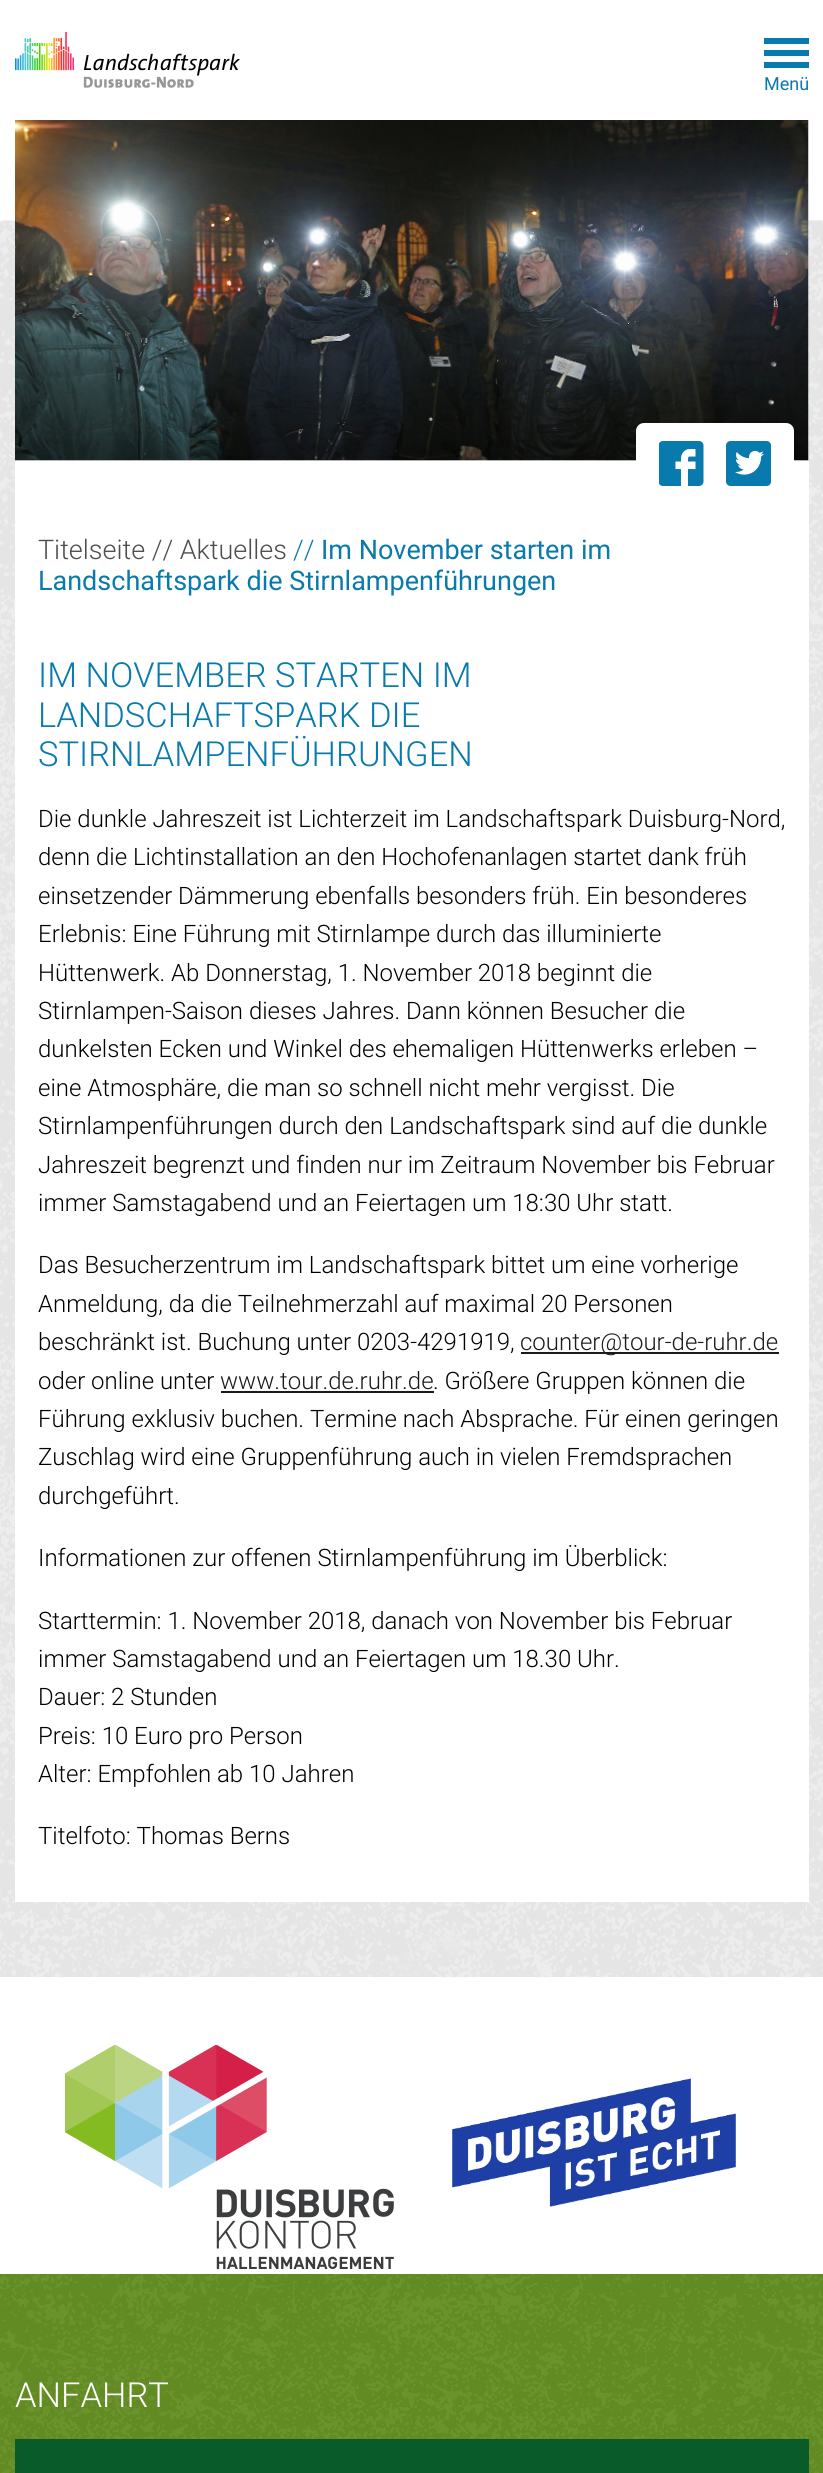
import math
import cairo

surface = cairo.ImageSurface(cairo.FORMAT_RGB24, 823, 2473)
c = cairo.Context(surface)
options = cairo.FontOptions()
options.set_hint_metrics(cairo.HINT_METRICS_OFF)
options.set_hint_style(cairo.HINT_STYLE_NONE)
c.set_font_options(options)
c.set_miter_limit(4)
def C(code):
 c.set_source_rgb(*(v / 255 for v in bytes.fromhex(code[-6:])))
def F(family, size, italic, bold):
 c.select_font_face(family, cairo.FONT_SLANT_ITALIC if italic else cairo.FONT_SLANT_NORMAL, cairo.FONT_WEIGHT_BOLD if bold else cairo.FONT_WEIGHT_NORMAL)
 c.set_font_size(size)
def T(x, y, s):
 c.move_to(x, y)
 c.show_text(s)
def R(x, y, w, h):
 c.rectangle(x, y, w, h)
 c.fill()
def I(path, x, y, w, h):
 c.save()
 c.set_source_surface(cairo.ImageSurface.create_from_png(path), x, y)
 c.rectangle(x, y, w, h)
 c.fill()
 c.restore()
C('ffffff')
c.paint()
I('1.png',15,32,225,56)
C('087aad')
R(764,38,45,6)
R(764,50,45,6)
R(764,62,45,6)
F('Roboto',18,0,0)
T(764,90,'Menü')
I('3.png',0,220,823,1757)
I('2.png',15,120,794,341)
C('ffffff')
R(15,461,794,1441)
c.new_path()
c.move_to(644,423)
c.line_to(786,423)
c.curve_to(790.5,423,794,426.5,794,431)
c.line_to(794,504)
c.line_to(636,504)
c.line_to(636,431)
c.curve_to(636,426.5,639.5,423,644,423)
c.close_path()
c.fill()
I('4.png',659,441,45,45)
I('5.png',726,441,45,45)
F('Roboto Light',27,0,0)
C('4d4d4d')
T(38,559,'Titelseite // Aktuelles')
C('087aad')
T(293,559,'//')
F('Roboto',27,0,0)
T(321,559,'Im November starten im')
T(38,590,'Landschaftspark die Stirnlampenführungen')
F('Roboto Light',34.5,0,0)
T(38,687,'IM NOVEMBER STARTEN IM')
T(38,727,'LANDSCHAFTSPARK DIE')
T(38,766,'STIRNLAMPENFÜHRUNGEN')
F('Roboto Light',24,0,0)
C('000000')
T(38,827,'Die dunkle Jahreszeit ist Lichterzeit im Landschaftspark Duisburg-Nord,')
T(38,865,'denn die Lichtinstallation an den Hochofenanlagen startet dank früh')
T(38,904,'einsetzender Dämmerung ebenfalls besonders früh. Ein besonderes')
T(38,942,'Erlebnis: Eine Führung mit Stirnlampe durch das illuminierte')
T(38,981,'Hüttenwerk. Ab Donnerstag, 1. November 2018 beginnt die')
T(38,1019,'Stirnlampen-Saison dieses Jahres. Dann können Besucher die')
T(38,1057,'dunkelsten Ecken und Winkel des ehemaligen Hüttenwerks erleben –')
T(38,1096,'eine Atmosphäre, die man so schnell nicht mehr vergisst. Die')
T(38,1134,'Stirnlampenführungen durch den Landschaftspark sind auf die dunkle')
T(38,1173,'Jahreszeit begrenzt und finden nur im Zeitraum November bis Februar')
T(38,1211,'immer Samstagabend und an Feiertagen um 18:30 Uhr statt.')
T(38,1273,'Das Besucherzentrum im Landschaftspark bittet um eine vorherige')
T(38,1312,'Anmeldung, da die Teilnehmerzahl auf maximal 20 Personen')
T(38,1350,'beschränkt ist. Buchung unter 0203-4291919,')
C('1a1a1a')
R(521,1352,258,2)
T(520,1350,'counter@tour-de-ruhr.de')
C('000000')
T(38,1389,'oder online unter')
C('1a1a1a')
T(220,1389,'www.tour.de.ruhr.de')
R(221,1391,213,2)
C('000000')
T(433,1389,'. Größere Gruppen können die')
T(38,1427,'Führung exklusiv buchen. Termine nach Absprache. Für einen geringen')
T(38,1465,'Zuschlag wird eine Gruppenführung auch in vielen Fremdsprachen')
T(38,1504,'durchgeführt.')
T(38,1566,'Informationen zur offenen Stirnlampenführung im Überblick:')
T(38,1629,'Starttermin: 1. November 2018, danach von November bis Februar')
T(38,1667,'immer Samstagabend und an Feiertagen um 18.30 Uhr.')
T(38,1705,'Dauer: 2 Stunden')
T(38,1744,'Preis: 10 Euro pro Person')
T(38,1782,'Alter: Empfohlen ab 10 Jahren')
T(38,1844,'Titelfoto: Thomas Berns')
I('6.png',65,2045,329,224)
I('7.png',452,2078,284,129)
I('8.png',0,2274,823,199)
F('Roboto Light',34.5,0,0)
C('ffffff')
T(15,2407,'ANFAHRT')
C('095c2a')
R(15,2439,794,34)
surface.write_to_png('o.png')
